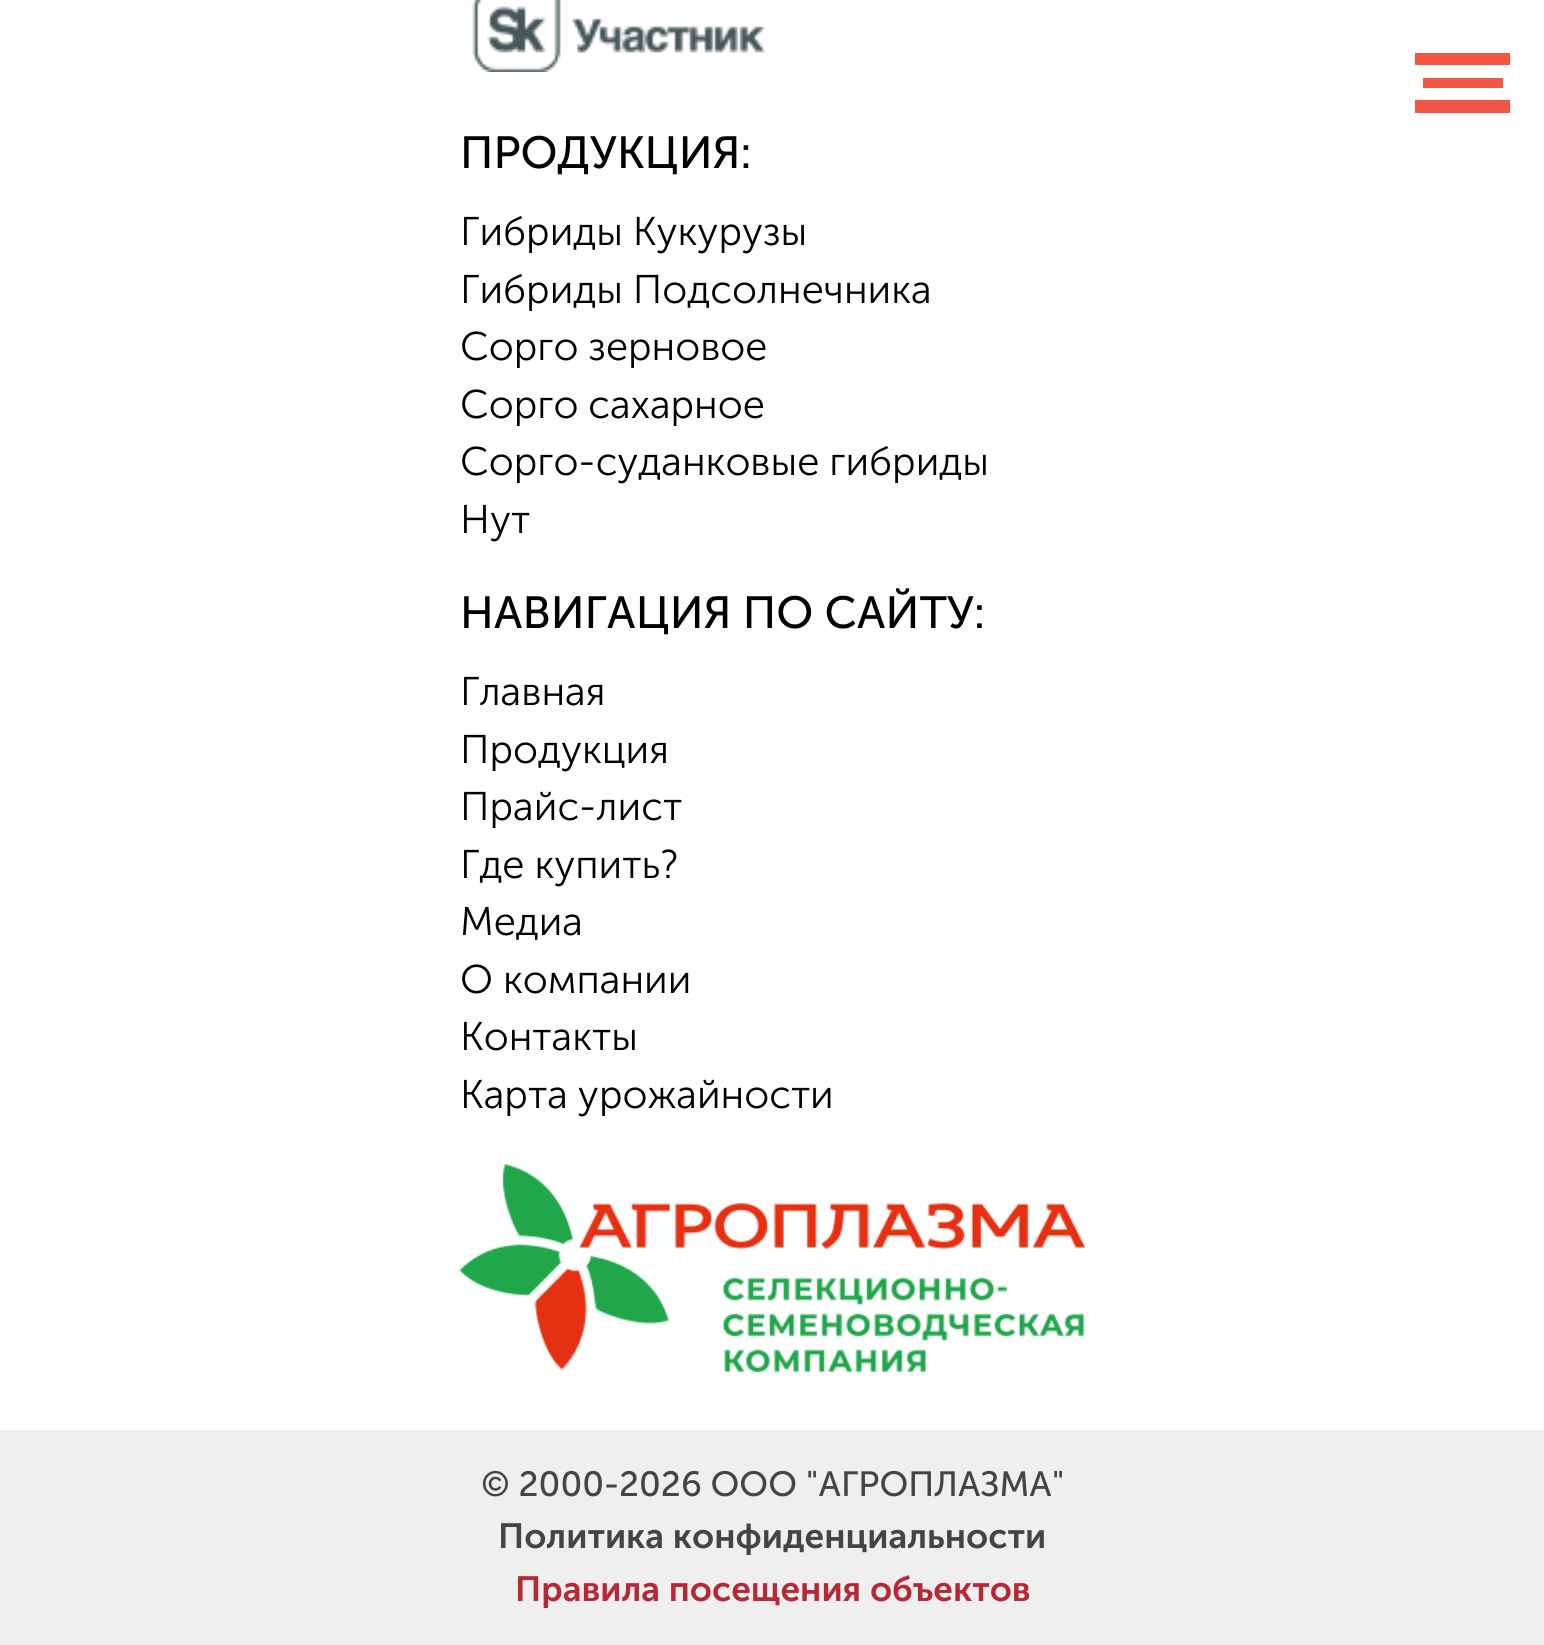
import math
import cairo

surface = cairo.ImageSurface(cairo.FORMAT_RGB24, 1544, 1645)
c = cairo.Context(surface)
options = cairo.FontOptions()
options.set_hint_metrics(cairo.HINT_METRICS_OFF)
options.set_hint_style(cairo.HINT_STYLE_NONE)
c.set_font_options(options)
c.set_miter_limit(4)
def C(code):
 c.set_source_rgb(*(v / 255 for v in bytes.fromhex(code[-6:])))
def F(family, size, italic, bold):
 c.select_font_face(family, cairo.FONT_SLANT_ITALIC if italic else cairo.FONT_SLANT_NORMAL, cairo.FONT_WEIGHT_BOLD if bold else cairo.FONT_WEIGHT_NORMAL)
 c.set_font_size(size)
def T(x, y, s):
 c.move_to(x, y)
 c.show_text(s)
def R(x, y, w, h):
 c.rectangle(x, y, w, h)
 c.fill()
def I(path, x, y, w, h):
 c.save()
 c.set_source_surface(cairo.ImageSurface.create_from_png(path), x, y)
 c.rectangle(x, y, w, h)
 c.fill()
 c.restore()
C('ffffff')
c.paint()
C('f35743')
R(1423,78,80,10)
R(1415,53,95,12)
R(1415,100,95,13)
I('1.png',472,0,293,72)
F('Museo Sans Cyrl',45,0,0)
C('000000')
T(460,168,'ПРОДУКЦИЯ:')
F('Museo Sans Cyrl Light',40,0,0)
T(460,245,'Гибриды Кукурузы')
T(460,303,'Гибриды Подсолнечника')
T(460,360,'Сорго зерновое')
T(460,418,'Сорго сахарное')
T(460,475,'Сорго-суданковые гибриды')
T(460,533,'Нут')
F('Museo Sans Cyrl',45,0,0)
T(460,628,'НАВИГАЦИЯ ПО САЙТУ:')
F('Museo Sans Cyrl Light',40,0,0)
T(460,705,'Главная')
T(460,763,'Продукция')
T(460,820,'Прайс-лист')
T(460,878,'Где купить?')
T(460,935,'Медиа')
T(460,993,'О компании')
T(460,1050,'Контакты')
T(460,1108,'Карта урожайности')
I('2.png',460,1164,625,208)
C('efefef')
R(0,1430,1544,215)
F('Museo Sans Cyrl',35,0,0)
C('444444')
T(481,1496,'© 2000-2026 ООО "АГРОПЛАЗМА"')
F('Museo Sans Cyrl SemiBold',35,0,0)
T(498,1548,'Политика конфиденциальности')
C('b82733')
T(515,1601,'Правила посещения объектов')
surface.write_to_png('o.png')
